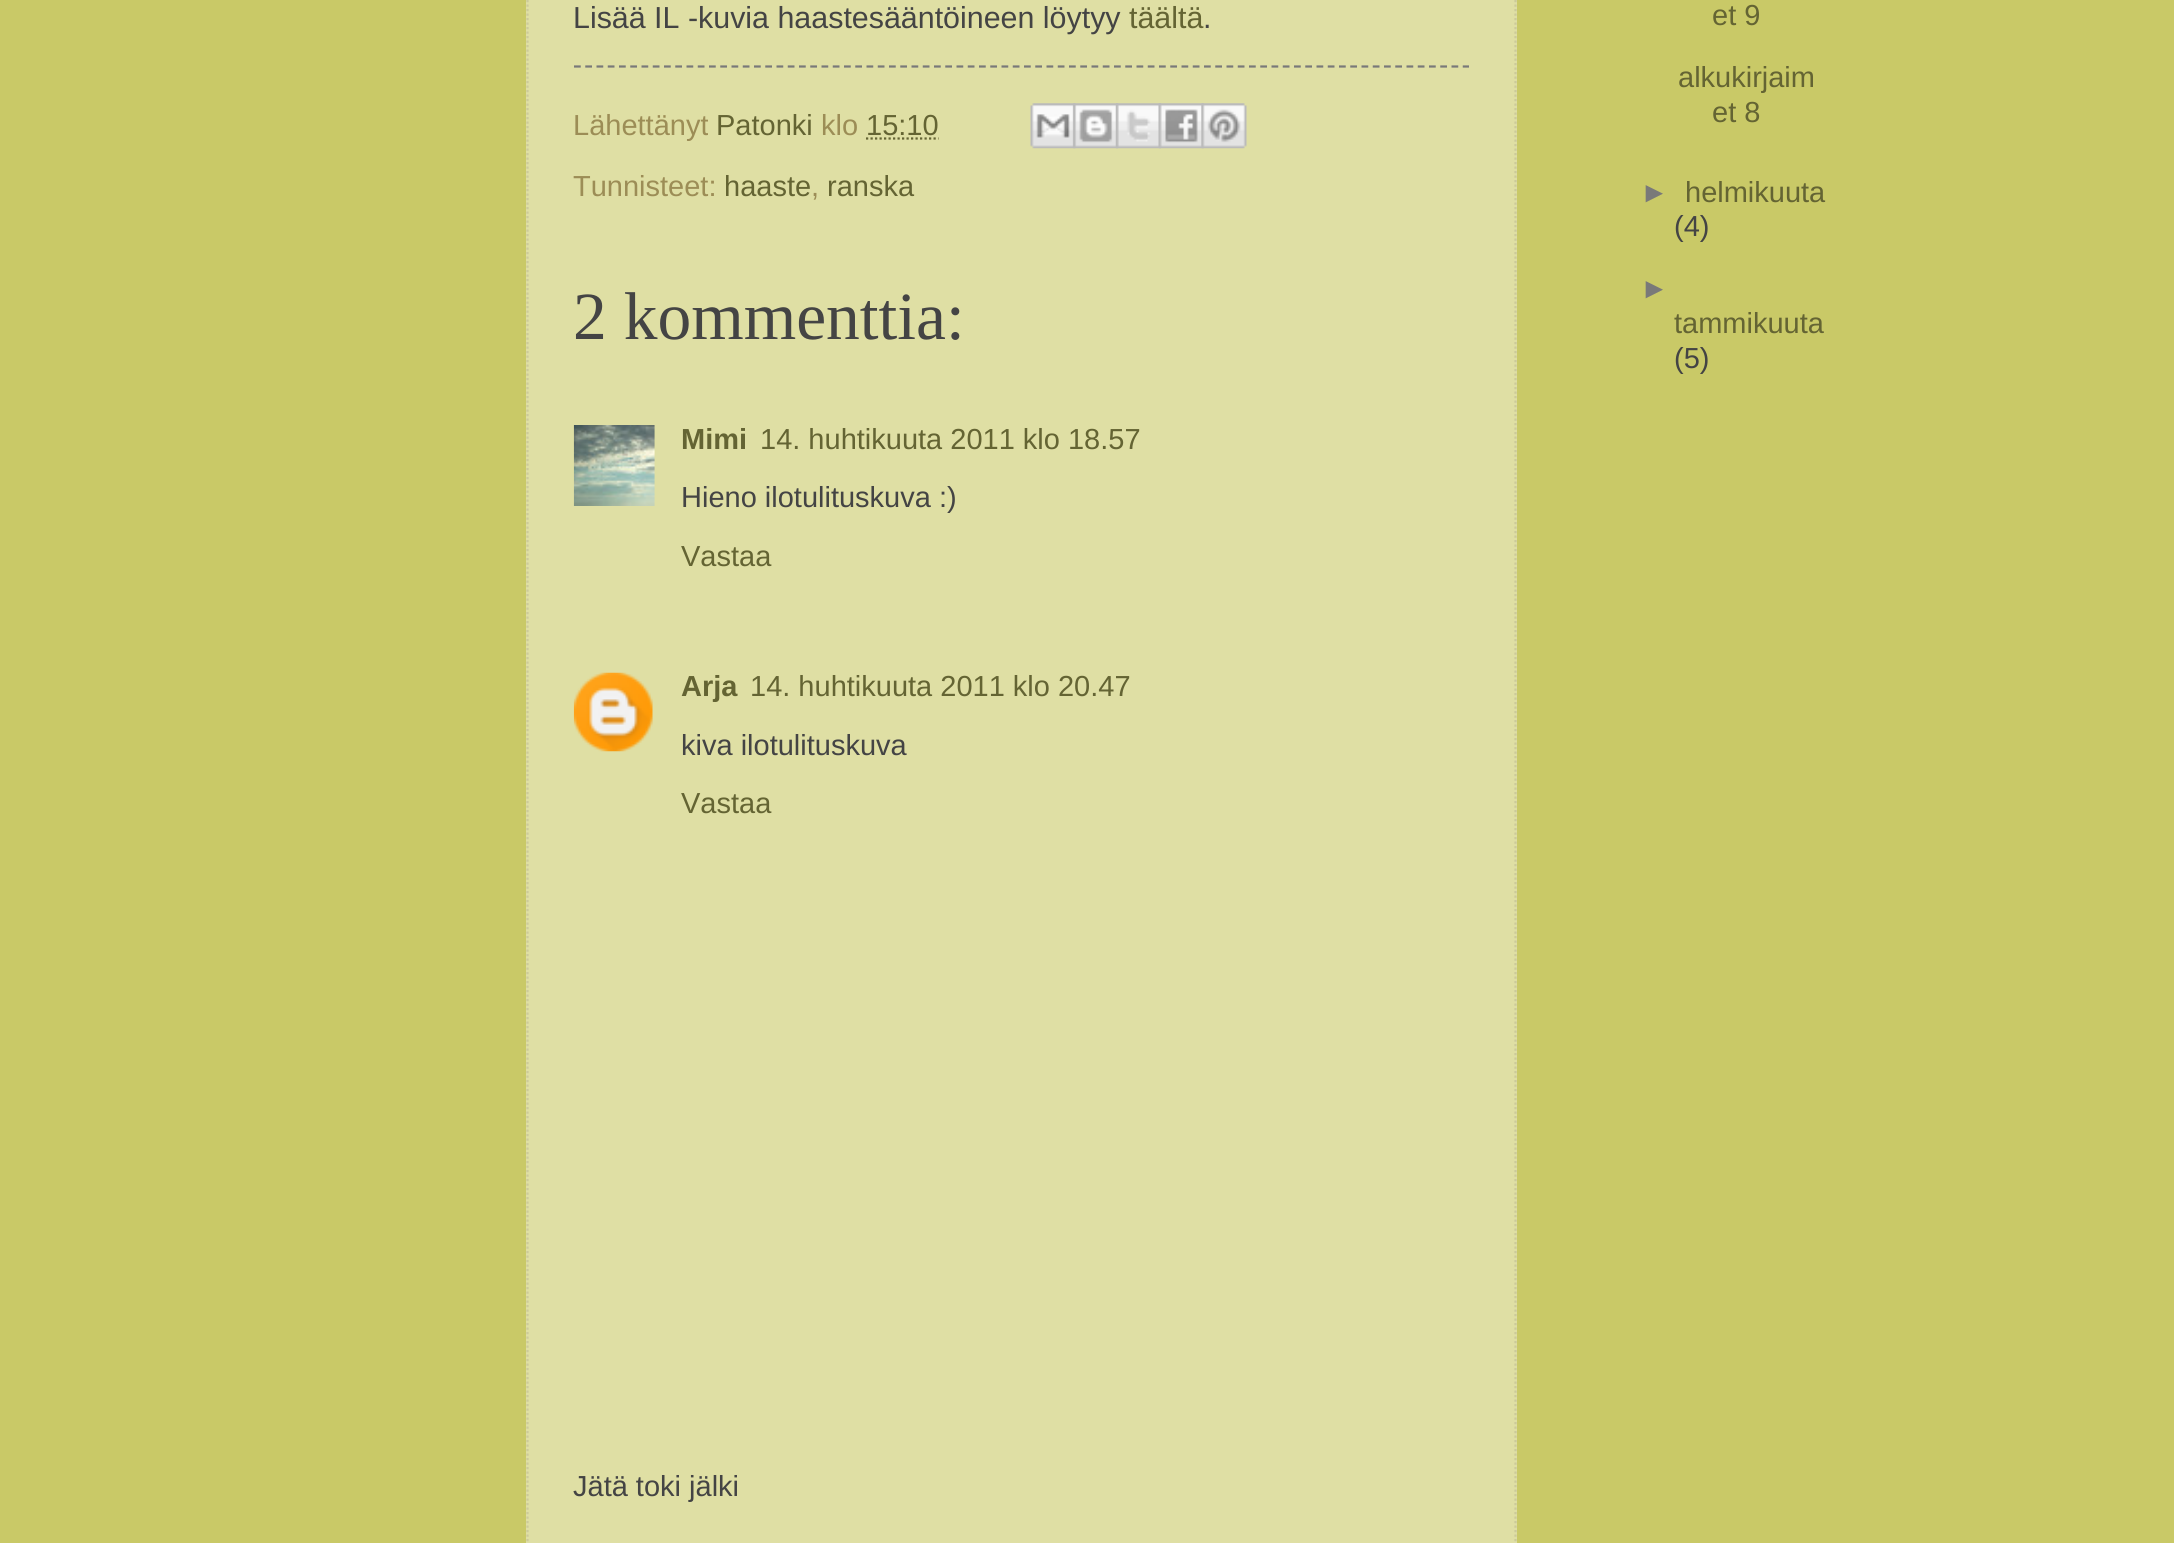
import math
import cairo

surface = cairo.ImageSurface(cairo.FORMAT_RGB24, 2174, 1543)
c = cairo.Context(surface)
options = cairo.FontOptions()
options.set_hint_metrics(cairo.HINT_METRICS_OFF)
options.set_hint_style(cairo.HINT_STYLE_NONE)
c.set_font_options(options)
c.set_miter_limit(4)
def C(code):
 c.set_source_rgb(*(v / 255 for v in bytes.fromhex(code[-6:])))
def F(family, size, italic, bold):
 c.select_font_face(family, cairo.FONT_SLANT_ITALIC if italic else cairo.FONT_SLANT_NORMAL, cairo.FONT_WEIGHT_BOLD if bold else cairo.FONT_WEIGHT_NORMAL)
 c.set_font_size(size)
def T(x, y, s):
 c.move_to(x, y)
 c.show_text(s)
def R(x, y, w, h):
 c.rectangle(x, y, w, h)
 c.fill()
def I(path, x, y, w, h):
 c.save()
 c.set_source_surface(cairo.ImageSurface.create_from_png(path), x, y)
 c.rectangle(x, y, w, h)
 c.fill()
 c.restore()
C('c9c967')
c.paint()
C('dfdfa4')
R(526,0,991,1543)
c.new_path()
c.move_to(1515.5,-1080)
c.line_to(1515.5,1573)
C('ccca9a')
c.set_line_width(2.2)
c.set_dash([2.25,2.25])
c.stroke()
c.new_path()
c.move_to(527.5,-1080)
c.line_to(527.5,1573)
c.stroke()
F('Liberation Sans',30.4,0,0)
C('444444')
T(573,28,'Lisää IL -kuvia haastesääntöineen löytyy')
C('646433')
T(1129,28,'täältä')
C('444444')
T(1203,28,'.')
c.new_path()
c.move_to(574,66.5)
c.line_to(1469,66.5)
C('797979')
c.set_dash([6.75,4.5])
c.stroke()
F('Liberation Sans',29,0,0)
C('9c8d56')
T(573,135,'Lähettänyt')
C('646433')
T(716,135,'Patonki')
C('9c8d56')
T(821,135,'klo')
C('646433')
T(866,135,'15:10')
c.new_path()
c.move_to(866,138.5)
c.line_to(938.5,138.5)
c.set_dash([2.25,2.25])
c.stroke()
I('1.png',1030,103,46,46)
I('2.png',1073,103,46,46)
I('3.png',1116,103,45,46)
I('4.png',1158,103,46,46)
I('5.png',1201,103,46,46)
C('9c8d56')
T(573,196,'Tunnisteet:')
C('646433')
T(724,196,'haaste')
C('9c8d56')
T(811,196,',')
C('646433')
T(827,196,'ranska')
F('Liberation Serif',67.5,0,0)
C('444444')
T(573,339,'2 kommenttia:')
I('6.png',573,425,82,81)
F('Liberation Sans',29,0,1)
C('646433')
T(681,449,'Mimi')
F('Liberation Sans',29,0,0)
T(760,449,'14. huhtikuuta 2011 klo 18.57')
C('444444')
T(681,507,'Hieno ilotulituskuva :)')
C('646433')
T(681,566,'Vastaa')
I('7.png',573,672,80,80)
F('Liberation Sans',29,0,1)
T(681,696,'Arja')
F('Liberation Sans',29,0,0)
T(750,696,'14. huhtikuuta 2011 klo 20.47')
C('444444')
T(681,755,'kiva ilotulituskuva')
C('646433')
T(681,813,'Vastaa')
C('444444')
T(573,1496,'Jätä toki jälki')
C('646433')
T(1712,25,'et 9')
T(1678,87,'alkukirjaim')
T(1712,122,'et 8')
C('797979')
T(1640,202,'►')
C('646433')
T(1685,202,'helmikuuta')
C('444444')
T(1674,236,'(4)')
C('797979')
T(1640,298,'►')
C('646433')
T(1674,333,'tammikuuta')
C('444444')
T(1674,368,'(5)')
surface.write_to_png('o.png')
